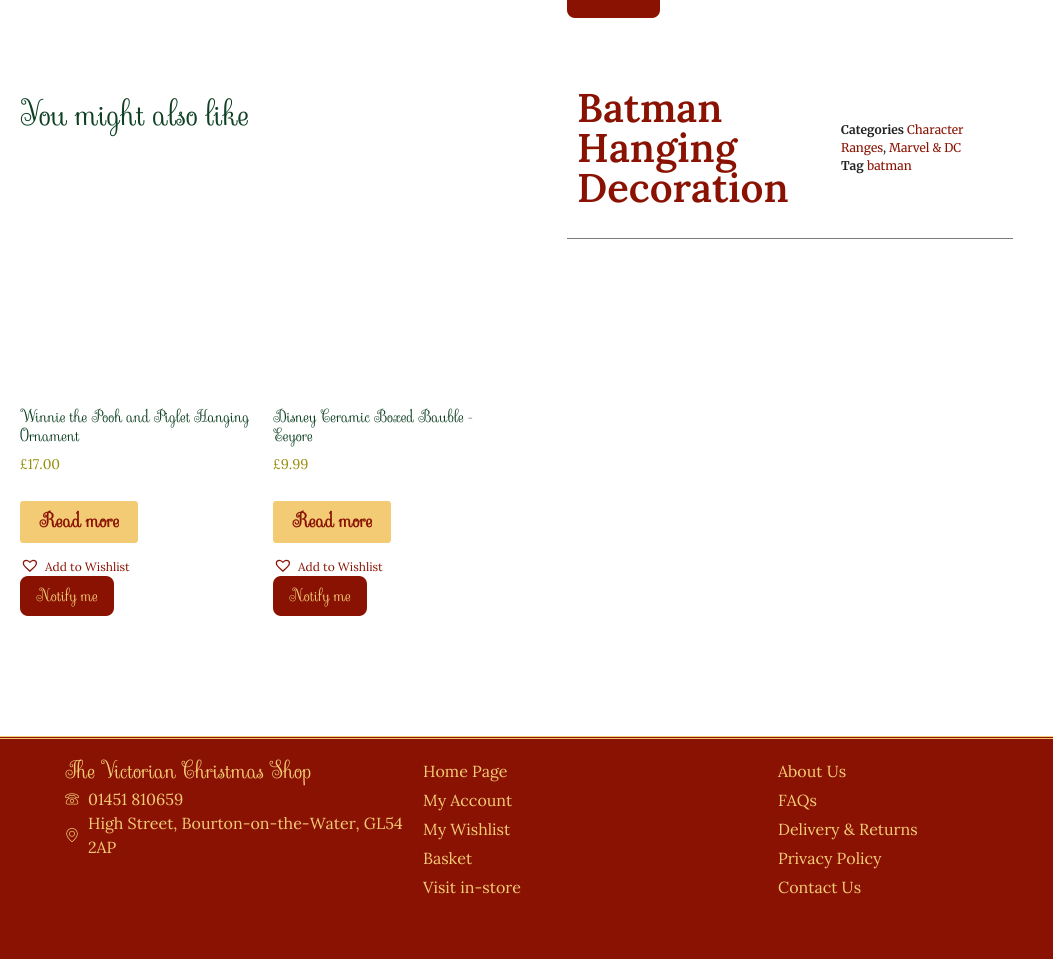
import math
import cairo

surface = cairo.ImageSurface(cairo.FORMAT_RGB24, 1053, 959)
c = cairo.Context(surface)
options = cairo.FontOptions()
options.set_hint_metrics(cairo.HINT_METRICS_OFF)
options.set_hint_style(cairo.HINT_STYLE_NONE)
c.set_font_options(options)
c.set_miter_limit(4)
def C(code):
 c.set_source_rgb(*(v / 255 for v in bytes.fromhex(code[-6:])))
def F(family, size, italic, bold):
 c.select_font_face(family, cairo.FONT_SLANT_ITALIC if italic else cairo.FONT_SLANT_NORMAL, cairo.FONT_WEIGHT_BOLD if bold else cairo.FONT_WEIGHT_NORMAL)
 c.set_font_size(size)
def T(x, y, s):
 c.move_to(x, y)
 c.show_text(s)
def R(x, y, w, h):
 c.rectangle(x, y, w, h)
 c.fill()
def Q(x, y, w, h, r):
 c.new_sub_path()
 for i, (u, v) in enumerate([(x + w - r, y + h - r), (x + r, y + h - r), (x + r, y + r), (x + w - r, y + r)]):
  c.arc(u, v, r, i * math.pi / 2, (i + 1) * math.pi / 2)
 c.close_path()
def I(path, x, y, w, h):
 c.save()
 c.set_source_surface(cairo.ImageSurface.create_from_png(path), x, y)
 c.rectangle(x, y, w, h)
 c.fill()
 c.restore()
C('ffffff')
c.paint()
C('891202')
Q(567,-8,93,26,8)
c.fill()
F('Sevillana',32,0,0)
C('0e4023')
T(20,125,'You might also like')
F('Sevillana',16,0,0)
T(20,422,'Winnie the Pooh and Piglet Hanging')
T(20,441,'Ornament')
F('Lora',14,0,0)
C('958e09')
T(20,469,'£17.00')
C('f4cb75')
Q(20,501,118,42,3)
c.fill()
F('Sevillana',19,0,1)
C('891202')
T(39,527,'Read more')
I('1.png',22,559,15,13)
F('Lora',12,0,0)
T(45,571,'Add to Wishlist')
Q(20,576,94,40,8)
c.fill()
F('Sevillana',16,0,0)
C('f4cb75')
T(36,601,'Notify me')
C('0e4023')
T(273,422,'Disney Ceramic Boxed Bauble –')
T(273,441,'Eeyore')
F('Lora',14,0,0)
C('958e09')
T(273,469,'£9.99')
C('f4cb75')
Q(273,501,118,42,3)
c.fill()
F('Sevillana',19,0,1)
C('891202')
T(292,527,'Read more')
I('1.png',275,559,15,13)
F('Lora',12,0,0)
T(298,571,'Add to Wishlist')
Q(273,576,94,40,8)
c.fill()
F('Sevillana',16,0,0)
C('f4cb75')
T(289,601,'Notify me')
C('7a7a7a')
R(567,238,446,1)
F('Lora SemiBold',40,0,0)
C('891202')
T(577,122,'Batman')
T(577,162,'Hanging')
T(577,202,'Decoration')
F('Merriweather',12,0,1)
C('232323')
T(841,134,'Categories')
F('Merriweather',12,0,0)
C('891202')
T(907,134,'Character')
T(841,152,'Ranges')
C('232323')
T(883,152,',')
C('891202')
T(889,152,'Marvel & DC')
F('Merriweather',12,0,1)
C('232323')
T(841,170,'Tag')
F('Merriweather',12,0,0)
C('891202')
T(867,170,'batman')
R(0,737,1053,222)
C('f4cb75')
R(0,736,1053,1)
R(0,738,1053,1)
F('Sevillana',22,0,0)
T(65,778,'The Victorian Christmas Shop')
I('2.png',65,793,14,12)
F('Lora',16,0,0)
T(88,805,'01451 810659')
I('3.png',66,828,12,14)
T(88,829,'High Street, Bourton-on-the-Water, GL54')
T(88,853,'2AP')
T(423,777,'Home Page')
T(423,806,'My Account')
T(423,835,'My Wishlist')
T(423,864,'Basket')
T(423,893,'Visit in-store')
T(778,777,'About Us')
T(778,806,'FAQs')
T(778,835,'Delivery & Returns')
T(778,864,'Privacy Policy')
T(778,893,'Contact Us')
surface.write_to_png('o.png')
